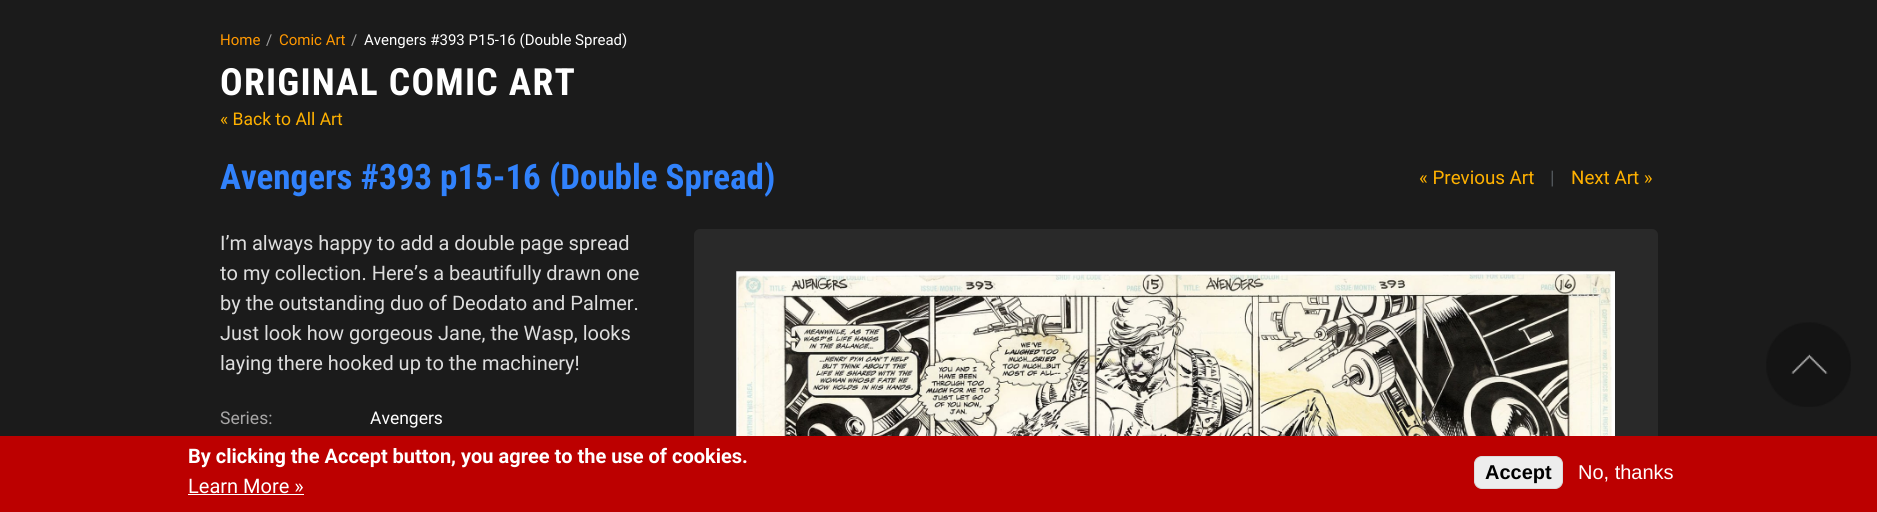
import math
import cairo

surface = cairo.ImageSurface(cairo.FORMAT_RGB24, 1877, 512)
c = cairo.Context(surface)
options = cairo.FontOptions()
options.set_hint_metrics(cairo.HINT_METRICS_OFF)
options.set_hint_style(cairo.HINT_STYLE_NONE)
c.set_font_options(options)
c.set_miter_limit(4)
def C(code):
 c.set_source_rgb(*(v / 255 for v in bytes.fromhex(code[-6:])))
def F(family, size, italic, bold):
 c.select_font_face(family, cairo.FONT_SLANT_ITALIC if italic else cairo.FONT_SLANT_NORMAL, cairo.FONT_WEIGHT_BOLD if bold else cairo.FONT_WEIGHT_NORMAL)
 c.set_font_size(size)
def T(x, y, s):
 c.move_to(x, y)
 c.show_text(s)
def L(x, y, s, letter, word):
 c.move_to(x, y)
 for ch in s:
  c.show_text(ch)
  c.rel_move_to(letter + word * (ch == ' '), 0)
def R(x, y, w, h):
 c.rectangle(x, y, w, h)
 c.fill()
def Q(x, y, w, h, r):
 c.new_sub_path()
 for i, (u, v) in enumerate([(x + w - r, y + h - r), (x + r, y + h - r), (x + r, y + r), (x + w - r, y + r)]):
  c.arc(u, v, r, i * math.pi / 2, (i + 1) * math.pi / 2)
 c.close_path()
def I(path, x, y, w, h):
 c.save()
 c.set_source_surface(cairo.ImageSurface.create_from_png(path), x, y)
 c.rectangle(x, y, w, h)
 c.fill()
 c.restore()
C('1b1b1b')
c.paint()
F('Roboto',15,0,0)
C('ff9800')
T(220,45,'Home')
C('a1a1a1')
T(266,45,'/')
C('ff9800')
T(279,45,'Comic Art')
C('a1a1a1')
T(351,45,'/')
C('ffffff')
T(364,45,'Avengers #393 P15-16 (Double Spread)')
F('Roboto Condensed',37.5,0,1)
L(220,95,'ORIGINAL COMIC ART',1.25,0)
F('Roboto',17.5,0,0)
C('ffb100')
T(220,125,'« Back to All Art')
F('Roboto Condensed',35,0,1)
C('3182fc')
T(220,189,'Avengers #393 p15-16 (Double Spread)')
F('Roboto',18.75,0,0)
C('ffb100')
T(1419,184,'« Previous Art')
C('52575b')
T(1550,184,'|')
C('ffb100')
T(1571,184,'Next Art »')
F('Roboto',20,0,0)
C('dddddd')
T(220,250,'I’m always happy to add a double page spread')
T(220,280,'to my collection. Here’s a beautifully drawn one')
T(220,310,'by the outstanding duo of Deodato and Palmer.')
T(220,340,'Just look how gorgeous Jane, the Wasp, looks')
T(220,370,'laying there hooked up to the machinery!')
F('Roboto',17.5,0,0)
C('a7a6a6')
T(220,424,'Series:')
C('ffffff')
T(370,424,'Avengers')
C('292929')
Q(694,229,964,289,6)
c.fill()
I('1.png',736,271,879,165)
I('2.png',1766,322,85,85)
C('bc0000')
R(0,436,1877,76)
F('Roboto',20,0,1)
C('ffffff')
T(188,463,'By clicking the Accept button, you agree to the use of cookies.')
F('Roboto',20,0,0)
T(188,493,'Learn More »')
R(188,494,116,1)
C('ededed')
Q(1474.5,456.5,88,32,7.5)
c.fill_preserve()
C('dcdcdc')
c.set_line_width(1)
c.stroke()
F('Liberation Sans',20,0,1)
C('000000')
T(1485,479,'Accept')
F('Liberation Sans',20,0,0)
C('ffffff')
T(1578,479,'No, thanks')
surface.write_to_png('o.png')
